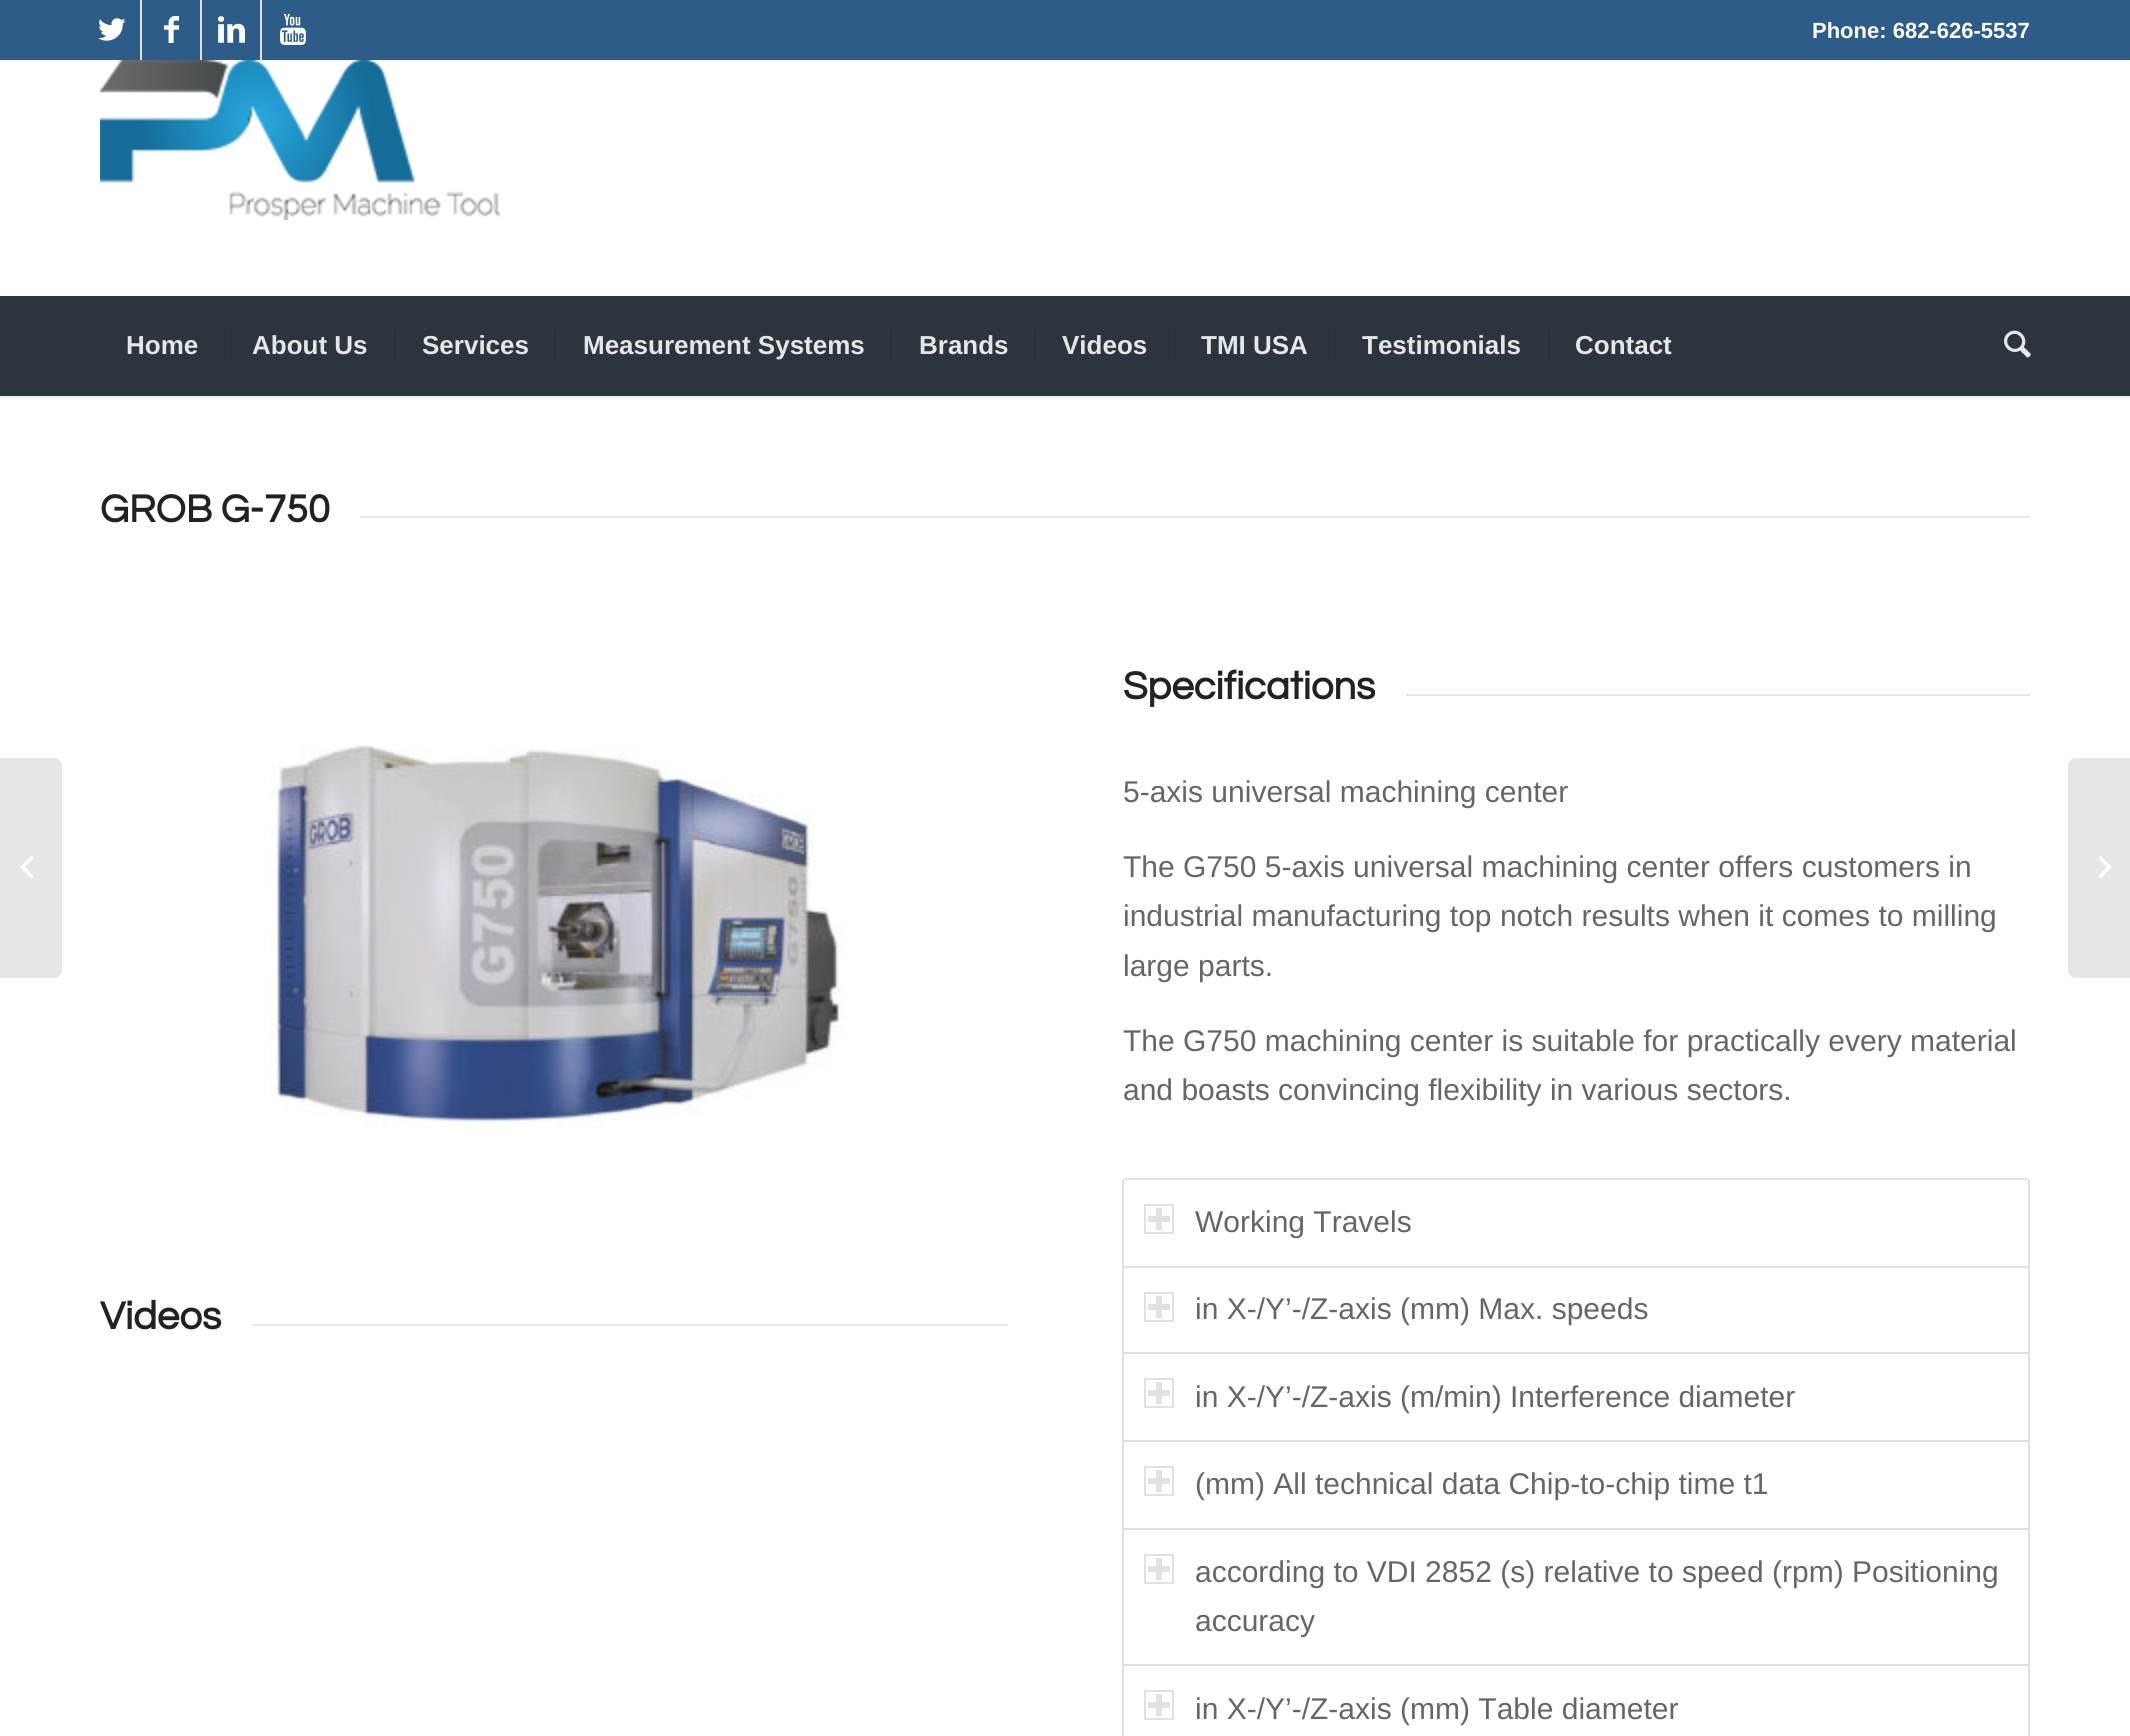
import math
import cairo

surface = cairo.ImageSurface(cairo.FORMAT_RGB24, 2130, 1736)
c = cairo.Context(surface)
options = cairo.FontOptions()
options.set_hint_metrics(cairo.HINT_METRICS_OFF)
options.set_hint_style(cairo.HINT_STYLE_NONE)
c.set_font_options(options)
c.set_miter_limit(4)
def C(code):
 c.set_source_rgb(*(v / 255 for v in bytes.fromhex(code[-6:])))
def F(family, size, italic, bold):
 c.select_font_face(family, cairo.FONT_SLANT_ITALIC if italic else cairo.FONT_SLANT_NORMAL, cairo.FONT_WEIGHT_BOLD if bold else cairo.FONT_WEIGHT_NORMAL)
 c.set_font_size(size)
def T(x, y, s):
 c.move_to(x, y)
 c.show_text(s)
def R(x, y, w, h):
 c.rectangle(x, y, w, h)
 c.fill()
def Q(x, y, w, h, r):
 c.new_sub_path()
 for i, (u, v) in enumerate([(x + w - r, y + h - r), (x + r, y + h - r), (x + r, y + r), (x + w - r, y + r)]):
  c.arc(u, v, r, i * math.pi / 2, (i + 1) * math.pi / 2)
 c.close_path()
def S(x, y, w, h, r, blur, alpha):
 c.push_group_with_content(cairo.CONTENT_ALPHA)
 c.set_operator(cairo.OPERATOR_SOURCE)
 for i in range(15, -16, -2):
  e = blur * i / 6
  if min(w, h) + 2 * e > 0:
   c.set_source_rgba(0, 0, 0, alpha * math.erfc((i - 1) / 8.5) / 2)
   Q(x - e, y - e, w + 2 * e, h + 2 * e, max(0, min(r + e + blur * .6, min(w, h) / 2 + e)))
   c.fill()
 c.mask(c.pop_group())
def I(path, x, y, w, h):
 c.save()
 c.set_source_surface(cairo.ImageSurface.create_from_png(path), x, y)
 c.rectangle(x, y, w, h)
 c.fill()
 c.restore()
C('ffffff')
c.paint()
c.save()
c.rectangle(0,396,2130,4)
c.clip()
C('000000')
S(-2,-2,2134,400,0,2,.1)
c.restore()
C('2d5c88')
R(0,0,2130,60)
C('e1e1e1')
R(140,0,2,60)
I('1.png',98,18,28,23)
R(200,0,2,60)
I('2.png',164,16,15,27)
R(260,0,2,60)
I('3.png',218,16,27,27)
I('4.png',280,14,26,31)
F('Liberation Sans',22,0,1)
C('ffffff')
T(1812,38,'Phone: 682-626-5537')
I('5.png',100,60,400,160)
C('2c353d')
R(0,296,2130,100)
F('Liberation Sans',26,0,1)
C('e6e6e6')
T(126,354,'Home')
T(252,354,'About Us')
C('2c3033')
R(224,330,2,30)
C('e6e6e6')
T(422,354,'Services')
C('2c3033')
R(394,330,2,30)
C('e6e6e6')
T(583,354,'Measurement Systems')
C('2c3033')
R(554,330,2,30)
C('e6e6e6')
T(919,354,'Brands')
C('2c3033')
R(890,330,2,30)
C('e6e6e6')
T(1062,354,'Videos')
C('2c3033')
R(1034,330,2,30)
C('e6e6e6')
T(1201,354,'TMI USA')
C('2c3033')
R(1174,330,2,30)
C('e6e6e6')
T(1362,354,'Testimonials')
C('2c3033')
R(1334,330,2,30)
C('e6e6e6')
T(1575,354,'Contact')
C('2c3033')
R(1548,330,2,30)
I('6.png',2004,330,27,28)
C('e6e6e6')
c.new_path()
c.move_to(0,758)
c.line_to(54,758)
c.curve_to(58.5,758,62,761.5,62,766)
c.line_to(62,970)
c.curve_to(62,974.5,58.5,978,54,978)
c.line_to(0,978)
c.close_path()
c.fill()
I('7.png',20,856,14,23)
F('Questrial',40,0,1)
C('222222')
T(100,522,'GROB G-750')
C('e8e8e8')
R(360,516,1670,2)
I('8.png',270,745,576,383)
C('222222')
T(100,1329,'Videos')
C('e8e8e8')
R(252,1324,756,2)
C('222222')
T(1123,699,'Specifications')
C('e8e8e8')
R(1406,694,624,2)
F('Liberation Sans',30,0,0)
C('666666')
T(1123,802,'5-axis universal machining center')
T(1123,877,'The G750 5-axis universal machining center offers customers in')
T(1123,926,'industrial manufacturing top notch results when it comes to milling')
T(1123,976,'large parts.')
T(1123,1051,'The G750 machining center is suitable for practically every material')
T(1123,1100,'and boasts convincing flexibility in various sectors.')
c.new_path()
c.move_to(1126,1179)
c.line_to(2026,1179)
c.curve_to(2027.5,1179,2029,1180.5,2029,1182)
c.line_to(2029,1267)
c.line_to(1123,1267)
c.line_to(1123,1182)
c.curve_to(1123,1180.5,1124.5,1179,1126,1179)
c.close_path()
C('e1e1e1')
c.stroke()
c.rectangle(1145,1205,28,28)
c.stroke()
R(1156,1208,6,22)
R(1148,1216,22,6)
C('666666')
T(1195,1232,'Working Travels')
C('ffffff')
c.new_path()
c.move_to(1126,1267)
c.line_to(2026,1267)
c.curve_to(2027.5,1267,2029,1268.5,2029,1270)
c.line_to(2029,1353)
c.line_to(1123,1353)
c.line_to(1123,1270)
c.curve_to(1123,1268.5,1124.5,1267,1126,1267)
c.close_path()
c.fill_preserve()
C('e1e1e1')
c.stroke()
c.rectangle(1145,1293,28,28)
c.stroke()
R(1156,1296,6,22)
R(1148,1304,22,6)
C('666666')
T(1195,1319,'in X-/Y’-/Z-axis (mm) Max. speeds')
C('ffffff')
c.new_path()
c.move_to(1126,1353)
c.line_to(2026,1353)
c.curve_to(2027.5,1353,2029,1354.5,2029,1356)
c.line_to(2029,1441)
c.line_to(1123,1441)
c.line_to(1123,1356)
c.curve_to(1123,1354.5,1124.5,1353,1126,1353)
c.close_path()
c.fill_preserve()
C('e1e1e1')
c.stroke()
c.rectangle(1145,1379,28,28)
c.stroke()
R(1156,1382,6,22)
R(1148,1390,22,6)
C('666666')
T(1195,1407,'in X-/Y’-/Z-axis (m/min) Interference diameter')
C('ffffff')
c.new_path()
c.move_to(1126,1441)
c.line_to(2026,1441)
c.curve_to(2027.5,1441,2029,1442.5,2029,1444)
c.line_to(2029,1529)
c.line_to(1123,1529)
c.line_to(1123,1444)
c.curve_to(1123,1442.5,1124.5,1441,1126,1441)
c.close_path()
c.fill_preserve()
C('e1e1e1')
c.stroke()
c.rectangle(1145,1467,28,28)
c.stroke()
R(1156,1470,6,22)
R(1148,1478,22,6)
C('666666')
T(1195,1494,'(mm) All technical data Chip-to-chip time t1')
C('ffffff')
c.new_path()
c.move_to(1126,1529)
c.line_to(2026,1529)
c.curve_to(2027.5,1529,2029,1530.5,2029,1532)
c.line_to(2029,1665)
c.line_to(1123,1665)
c.line_to(1123,1532)
c.curve_to(1123,1530.5,1124.5,1529,1126,1529)
c.close_path()
c.fill_preserve()
C('e1e1e1')
c.stroke()
c.rectangle(1145,1555,28,28)
c.stroke()
R(1156,1558,6,22)
R(1148,1566,22,6)
C('666666')
T(1195,1582,'according to VDI 2852 (s) relative to speed (rpm) Positioning')
T(1195,1631,'accuracy')
C('ffffff')
c.new_path()
c.move_to(1126,1665)
c.line_to(2026,1665)
c.curve_to(2027.5,1665,2029,1666.5,2029,1668)
c.line_to(2029,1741)
c.line_to(1123,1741)
c.line_to(1123,1668)
c.curve_to(1123,1666.5,1124.5,1665,1126,1665)
c.close_path()
c.fill_preserve()
C('e1e1e1')
c.stroke()
c.rectangle(1145,1691,28,28)
c.stroke()
R(1156,1694,6,22)
R(1148,1702,22,6)
C('666666')
T(1195,1719,'in X-/Y’-/Z-axis (mm) Table diameter')
C('e6e6e6')
c.new_path()
c.move_to(2076,758)
c.line_to(2130,758)
c.line_to(2130,978)
c.line_to(2076,978)
c.curve_to(2071.5,978,2068,974.5,2068,970)
c.line_to(2068,766)
c.curve_to(2068,761.5,2071.5,758,2076,758)
c.close_path()
c.fill()
I('9.png',2098,856,14,23)
surface.write_to_png('o.png')
